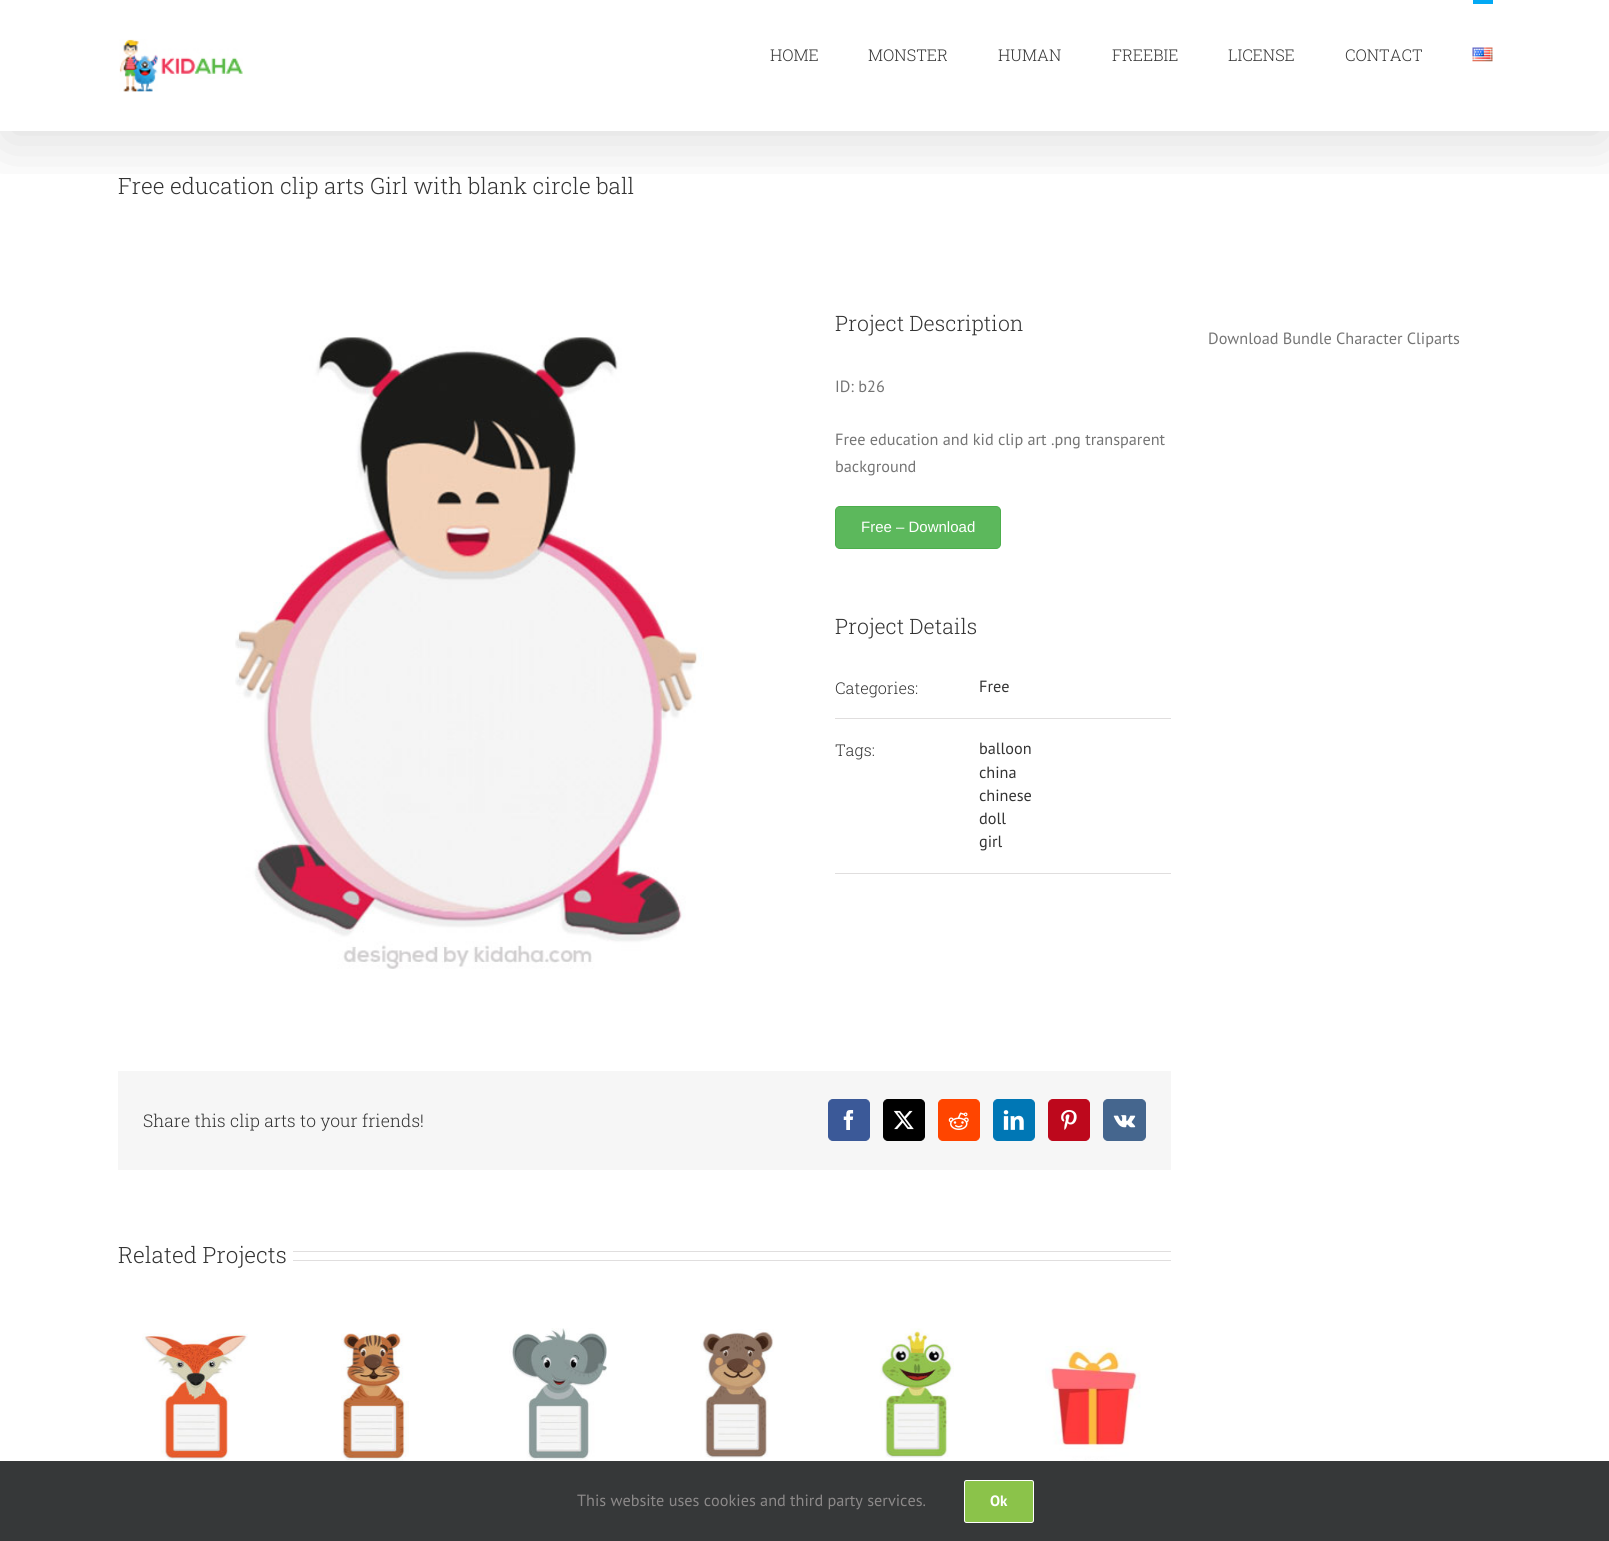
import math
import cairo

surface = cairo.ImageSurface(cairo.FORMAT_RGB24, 1609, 1541)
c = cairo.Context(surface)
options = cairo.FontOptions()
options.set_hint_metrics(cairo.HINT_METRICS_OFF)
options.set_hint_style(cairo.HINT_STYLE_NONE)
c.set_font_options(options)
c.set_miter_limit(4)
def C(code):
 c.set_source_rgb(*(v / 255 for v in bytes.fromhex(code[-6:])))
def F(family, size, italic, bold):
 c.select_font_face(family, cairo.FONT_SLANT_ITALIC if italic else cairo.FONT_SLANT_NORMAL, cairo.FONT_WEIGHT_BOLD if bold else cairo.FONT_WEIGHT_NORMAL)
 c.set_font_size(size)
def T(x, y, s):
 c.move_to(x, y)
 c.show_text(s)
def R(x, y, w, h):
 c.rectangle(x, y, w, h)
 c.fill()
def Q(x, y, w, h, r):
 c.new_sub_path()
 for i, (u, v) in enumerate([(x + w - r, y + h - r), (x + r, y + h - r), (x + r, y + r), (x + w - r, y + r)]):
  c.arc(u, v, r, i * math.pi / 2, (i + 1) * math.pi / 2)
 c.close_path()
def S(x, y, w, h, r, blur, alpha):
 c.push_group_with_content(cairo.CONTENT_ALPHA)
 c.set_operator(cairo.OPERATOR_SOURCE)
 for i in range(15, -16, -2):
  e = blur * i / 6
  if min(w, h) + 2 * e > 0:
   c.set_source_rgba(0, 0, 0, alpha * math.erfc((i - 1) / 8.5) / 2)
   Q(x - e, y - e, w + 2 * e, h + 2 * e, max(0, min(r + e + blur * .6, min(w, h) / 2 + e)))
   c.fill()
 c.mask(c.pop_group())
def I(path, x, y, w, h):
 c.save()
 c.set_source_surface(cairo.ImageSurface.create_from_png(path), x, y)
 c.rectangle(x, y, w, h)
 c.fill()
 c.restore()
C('ffffff')
c.paint()
c.save()
c.rectangle(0,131,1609,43)
c.clip()
C('000000')
S(3,15,1605,126,0,31,.14)
c.restore()
I('1.png',119,39,124,53)
F('Roboto Slab Light',16.25,0,0)
C('333333')
T(770,61,'HOME')
T(868,61,'MONSTER')
T(998,61,'HUMAN')
T(1112,61,'FREEBIE')
T(1228,61,'LICENSE')
T(1345,61,'CONTACT')
C('03a9f4')
R(1473,0,20,4)
I('2.png',1472,47,21,15)
F('Roboto Slab Light',22.5,0,0)
C('333333')
T(118,194,'Free education clip arts Girl with blank circle ball')
I('3.png',235,337,469,632)
F('Roboto Slab Light',21.25,0,0)
T(835,331,'Project Description')
F('PT Sans',16.25,0,0)
C('747474')
T(835,392,'ID: b26')
T(835,445,'Free education and kid clip art .png transparent')
T(835,472,'background')
C('5cb85c')
Q(835.5,506.5,165,42,4.5)
c.fill_preserve()
C('4cae4c')
c.set_line_width(1)
c.stroke()
F('Liberation Sans',15,0,0)
C('ffffff')
T(861,532,'Free – Download')
F('Roboto Slab Light',21.25,0,0)
C('333333')
T(835,634,'Project Details')
C('e0dede')
R(835,718,336,1)
F('Roboto Slab Light',16.25,0,0)
C('333333')
T(835,694,'Categories:')
F('PT Sans',16.25,0,0)
T(979,692,'Free')
C('e0dede')
R(835,873,336,1)
F('Roboto Slab Light',16.25,0,0)
C('333333')
T(835,756,'Tags:')
F('PT Sans',16.25,0,0)
T(979,754,'balloon')
T(979,778,'china')
T(979,801,'chinese')
T(979,824,'doll')
T(979,847,'girl')
C('f6f6f6')
R(118,1071,1053,99)
F('Roboto Slab Light',17.5,0,0)
C('333333')
T(143,1127,'Share this clip arts to your friends!')
C('3b5998')
Q(828.5,1099.5,41,41,4.5)
c.fill_preserve()
c.stroke()
I('4.png',843,1110,11,20)
C('000000')
Q(883.5,1099.5,41,41,4.5)
c.fill_preserve()
c.stroke()
I('5.png',893,1110,21,20)
C('ff4500')
Q(938.5,1099.5,41,41,4.5)
c.fill_preserve()
c.stroke()
I('6.png',948,1112,21,18)
C('0077b5')
Q(993.5,1099.5,41,41,4.5)
c.fill_preserve()
c.stroke()
I('7.png',1003,1110,21,20)
C('bd081c')
Q(1048.5,1099.5,41,41,4.5)
c.fill_preserve()
c.stroke()
I('8.png',1061,1110,16,20)
C('45668e')
Q(1103.5,1099.5,42,41,4.5)
c.fill_preserve()
c.stroke()
I('9.png',1113,1115,23,13)
F('Roboto Slab Light',22.5,0,0)
C('333333')
T(118,1263,'Related Projects')
C('e0dede')
R(293,1251,878,1)
R(293,1260,878,1)
I('10.png',142,1333,106,128)
I('11.png',341,1333,68,128)
I('12.png',509,1328,98,133)
I('13.png',700,1329,74,132)
I('14.png',879,1328,75,133)
I('15.png',1045,1346,96,115)
F('PT Sans',16.25,0,0)
C('747474')
T(1208,344,'Download Bundle Character Cliparts')
C('363839')
R(0,1461,1609,80)
C('8c8989')
T(577,1506,'This website uses cookies and third party services.')
C('8bc34a')
Q(964.5,1480.5,69,42,2)
c.fill_preserve()
C('ffffff')
c.stroke()
F('PT Sans',15,0,1)
T(990,1506,'Ok')
surface.write_to_png('o.png')
